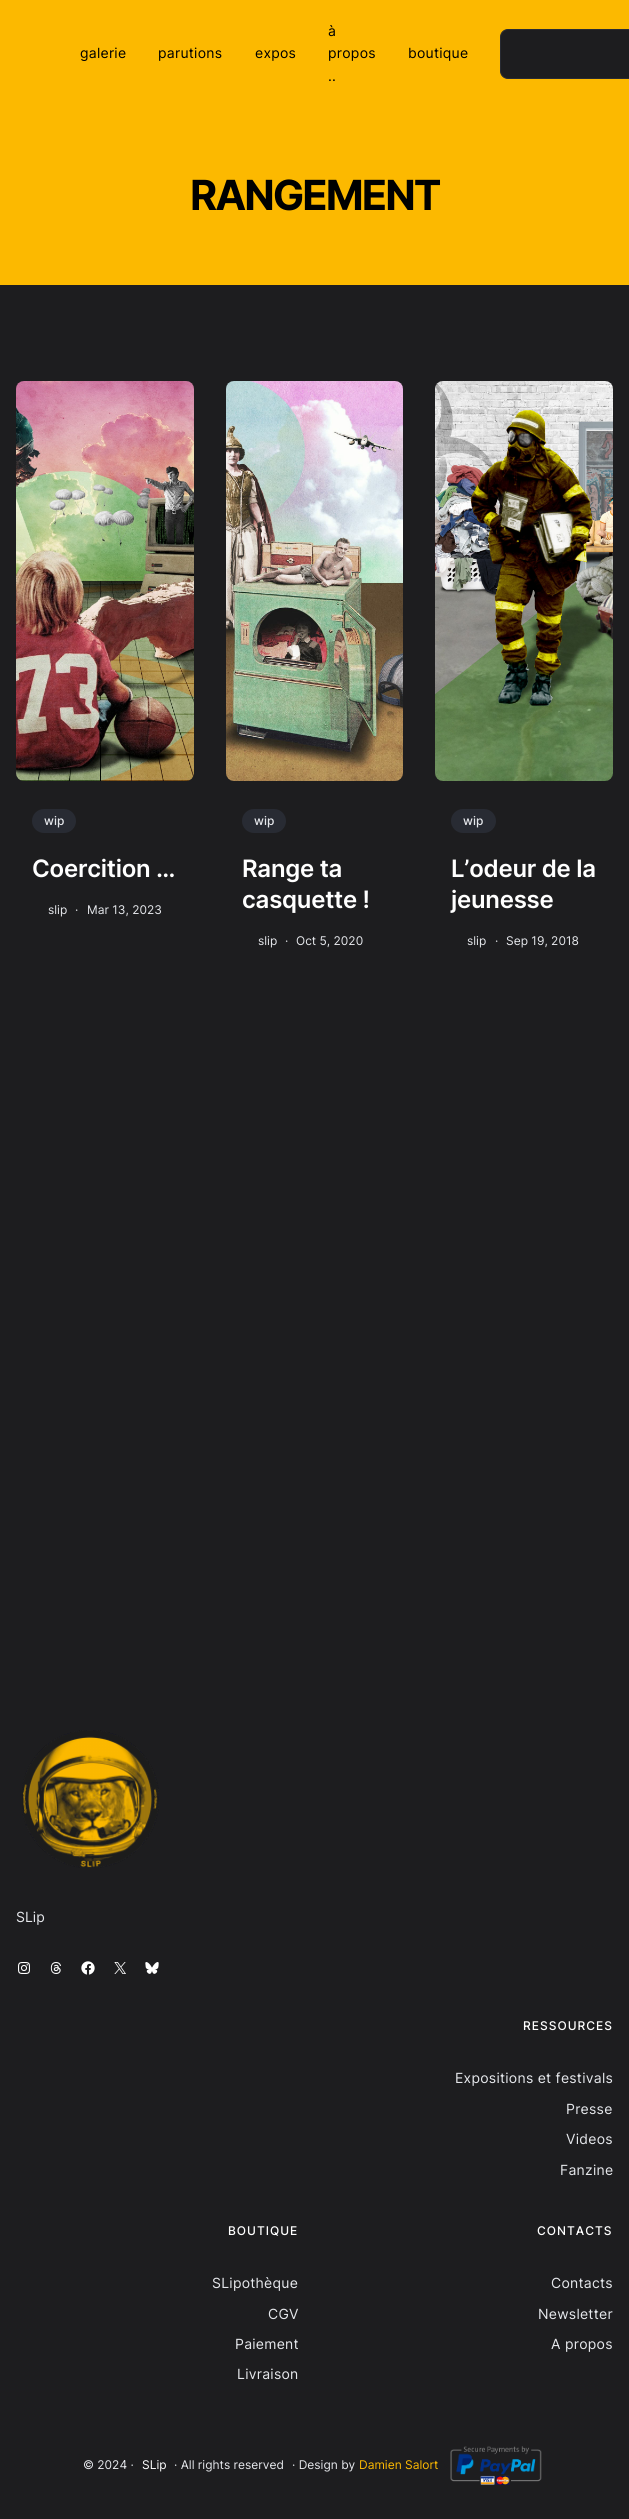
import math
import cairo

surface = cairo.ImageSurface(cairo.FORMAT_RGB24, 629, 2519)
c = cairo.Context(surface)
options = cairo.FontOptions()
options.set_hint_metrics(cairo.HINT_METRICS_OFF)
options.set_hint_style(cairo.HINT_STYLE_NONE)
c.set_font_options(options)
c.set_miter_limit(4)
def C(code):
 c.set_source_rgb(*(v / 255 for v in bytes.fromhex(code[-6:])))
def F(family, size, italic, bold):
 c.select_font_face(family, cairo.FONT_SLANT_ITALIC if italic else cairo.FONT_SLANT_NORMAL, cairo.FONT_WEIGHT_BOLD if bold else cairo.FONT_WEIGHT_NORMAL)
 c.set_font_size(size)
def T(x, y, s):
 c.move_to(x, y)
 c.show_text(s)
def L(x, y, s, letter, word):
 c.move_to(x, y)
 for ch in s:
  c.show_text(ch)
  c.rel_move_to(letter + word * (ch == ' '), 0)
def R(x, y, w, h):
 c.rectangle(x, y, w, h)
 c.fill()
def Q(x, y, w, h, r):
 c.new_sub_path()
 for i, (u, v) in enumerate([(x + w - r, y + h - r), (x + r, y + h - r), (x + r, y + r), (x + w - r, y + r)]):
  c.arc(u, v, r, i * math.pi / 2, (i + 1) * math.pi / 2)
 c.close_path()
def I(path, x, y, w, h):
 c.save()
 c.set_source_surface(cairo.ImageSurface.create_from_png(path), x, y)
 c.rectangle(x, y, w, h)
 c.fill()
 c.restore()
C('1d1d1f')
c.paint()
C('fcb900')
R(0,0,629,285)
F('Inter',14,0,0)
C('000000')
L(80,58,'galerie',.25,0)
L(158,58,'parutions',.25,0)
L(255,58,'expos',.25,0)
L(328,36,'à',.25,0)
L(328,58,'propos',.25,0)
L(328,81,'..',.25,0)
L(408,58,'boutique',.25,0)
C('1d1d1f')
Q(500.5,29.5,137,49,7.5)
c.fill_preserve()
C('282b33')
c.set_line_width(1)
c.stroke()
F('Inter',41.5,0,1)
C('000000')
L(190,210,'RANGEMENT',-2,0)
I('1.png',16,381,178,400)
C('282b33')
Q(32,809,44,24,12)
c.fill()
F('Inter Medium',12,0,0)
C('e5e7eb')
T(44,825,'wip')
F('Inter SemiBold',24,0,0)
C('ffffff')
L(32,877,'Coercition …',-.25,0)
F('Inter',12,0,0)
C('e5e7eb')
T(48,914,'slip')
T(75,914,'·')
T(87,914,'Mar 13, 2023')
I('2.png',226,381,177,400)
C('282b33')
Q(242,809,44,24,12)
c.fill()
F('Inter Medium',12,0,0)
C('e5e7eb')
T(254,825,'wip')
F('Inter SemiBold',24,0,0)
C('ffffff')
L(242,877,'Range ta',-.25,0)
L(242,908,'casquette !',-.25,0)
F('Inter',12,0,0)
C('e5e7eb')
T(258,945,'slip')
T(285,945,'·')
T(296,945,'Oct 5, 2020')
I('3.png',435,381,178,400)
C('282b33')
Q(451,809,45,24,12)
c.fill()
F('Inter Medium',12,0,0)
C('e5e7eb')
T(463,825,'wip')
F('Inter SemiBold',24,0,0)
C('ffffff')
L(451,877,'L’odeur de la',-.25,0)
L(451,908,'jeunesse',-.25,0)
F('Inter',12,0,0)
C('e5e7eb')
T(467,945,'slip')
T(495,945,'·')
T(506,945,'Sep 19, 2018')
I('4.png',22,1730,137,138)
F('Inter',14,0,0)
T(16,1922,'SLip')
I('5.png',18,1962,12,12)
I('6.png',50,1962,11,12)
I('7.png',81,1961,14,14)
I('8.png',114,1962,12,12)
I('9.png',145,1962,14,12)
F('Inter Medium',12,0,0)
C('ffffff')
L(523,2030,'RESSOURCES',1,0)
F('Inter',14,0,0)
C('e5e7eb')
L(455,2083,'Expositions et festivals',.25,0)
L(566,2114,'Presse',.25,0)
L(566,2144,'Videos',.25,0)
L(560,2175,'Fanzine',.25,0)
F('Inter Medium',12,0,0)
C('ffffff')
L(228,2235,'BOUTIQUE',1,0)
F('Inter',14,0,0)
C('e5e7eb')
L(212,2288,'SLipothèque',.25,0)
L(268,2319,'CGV',.25,0)
L(235,2349,'Paiement',.25,0)
L(237,2379,'Livraison',.25,0)
F('Inter Medium',12,0,0)
C('ffffff')
L(537,2235,'CONTACTS',1,0)
F('Inter',14,0,0)
C('e5e7eb')
L(551,2288,'Contacts',.25,0)
L(538,2319,'Newsletter',.25,0)
L(551,2349,'A propos',.25,0)
F('Inter',12,0,0)
T(83,2469,'© 2024 ·')
C('ffffff')
T(142,2469,'SLip')
C('e5e7eb')
T(174,2469,'· All rights reserved')
T(292,2469,'· Design by')
C('fcb900')
T(359,2469,'Damien Salort')
I('10.png',450,2446,92,39)
surface.write_to_png('o.png')
